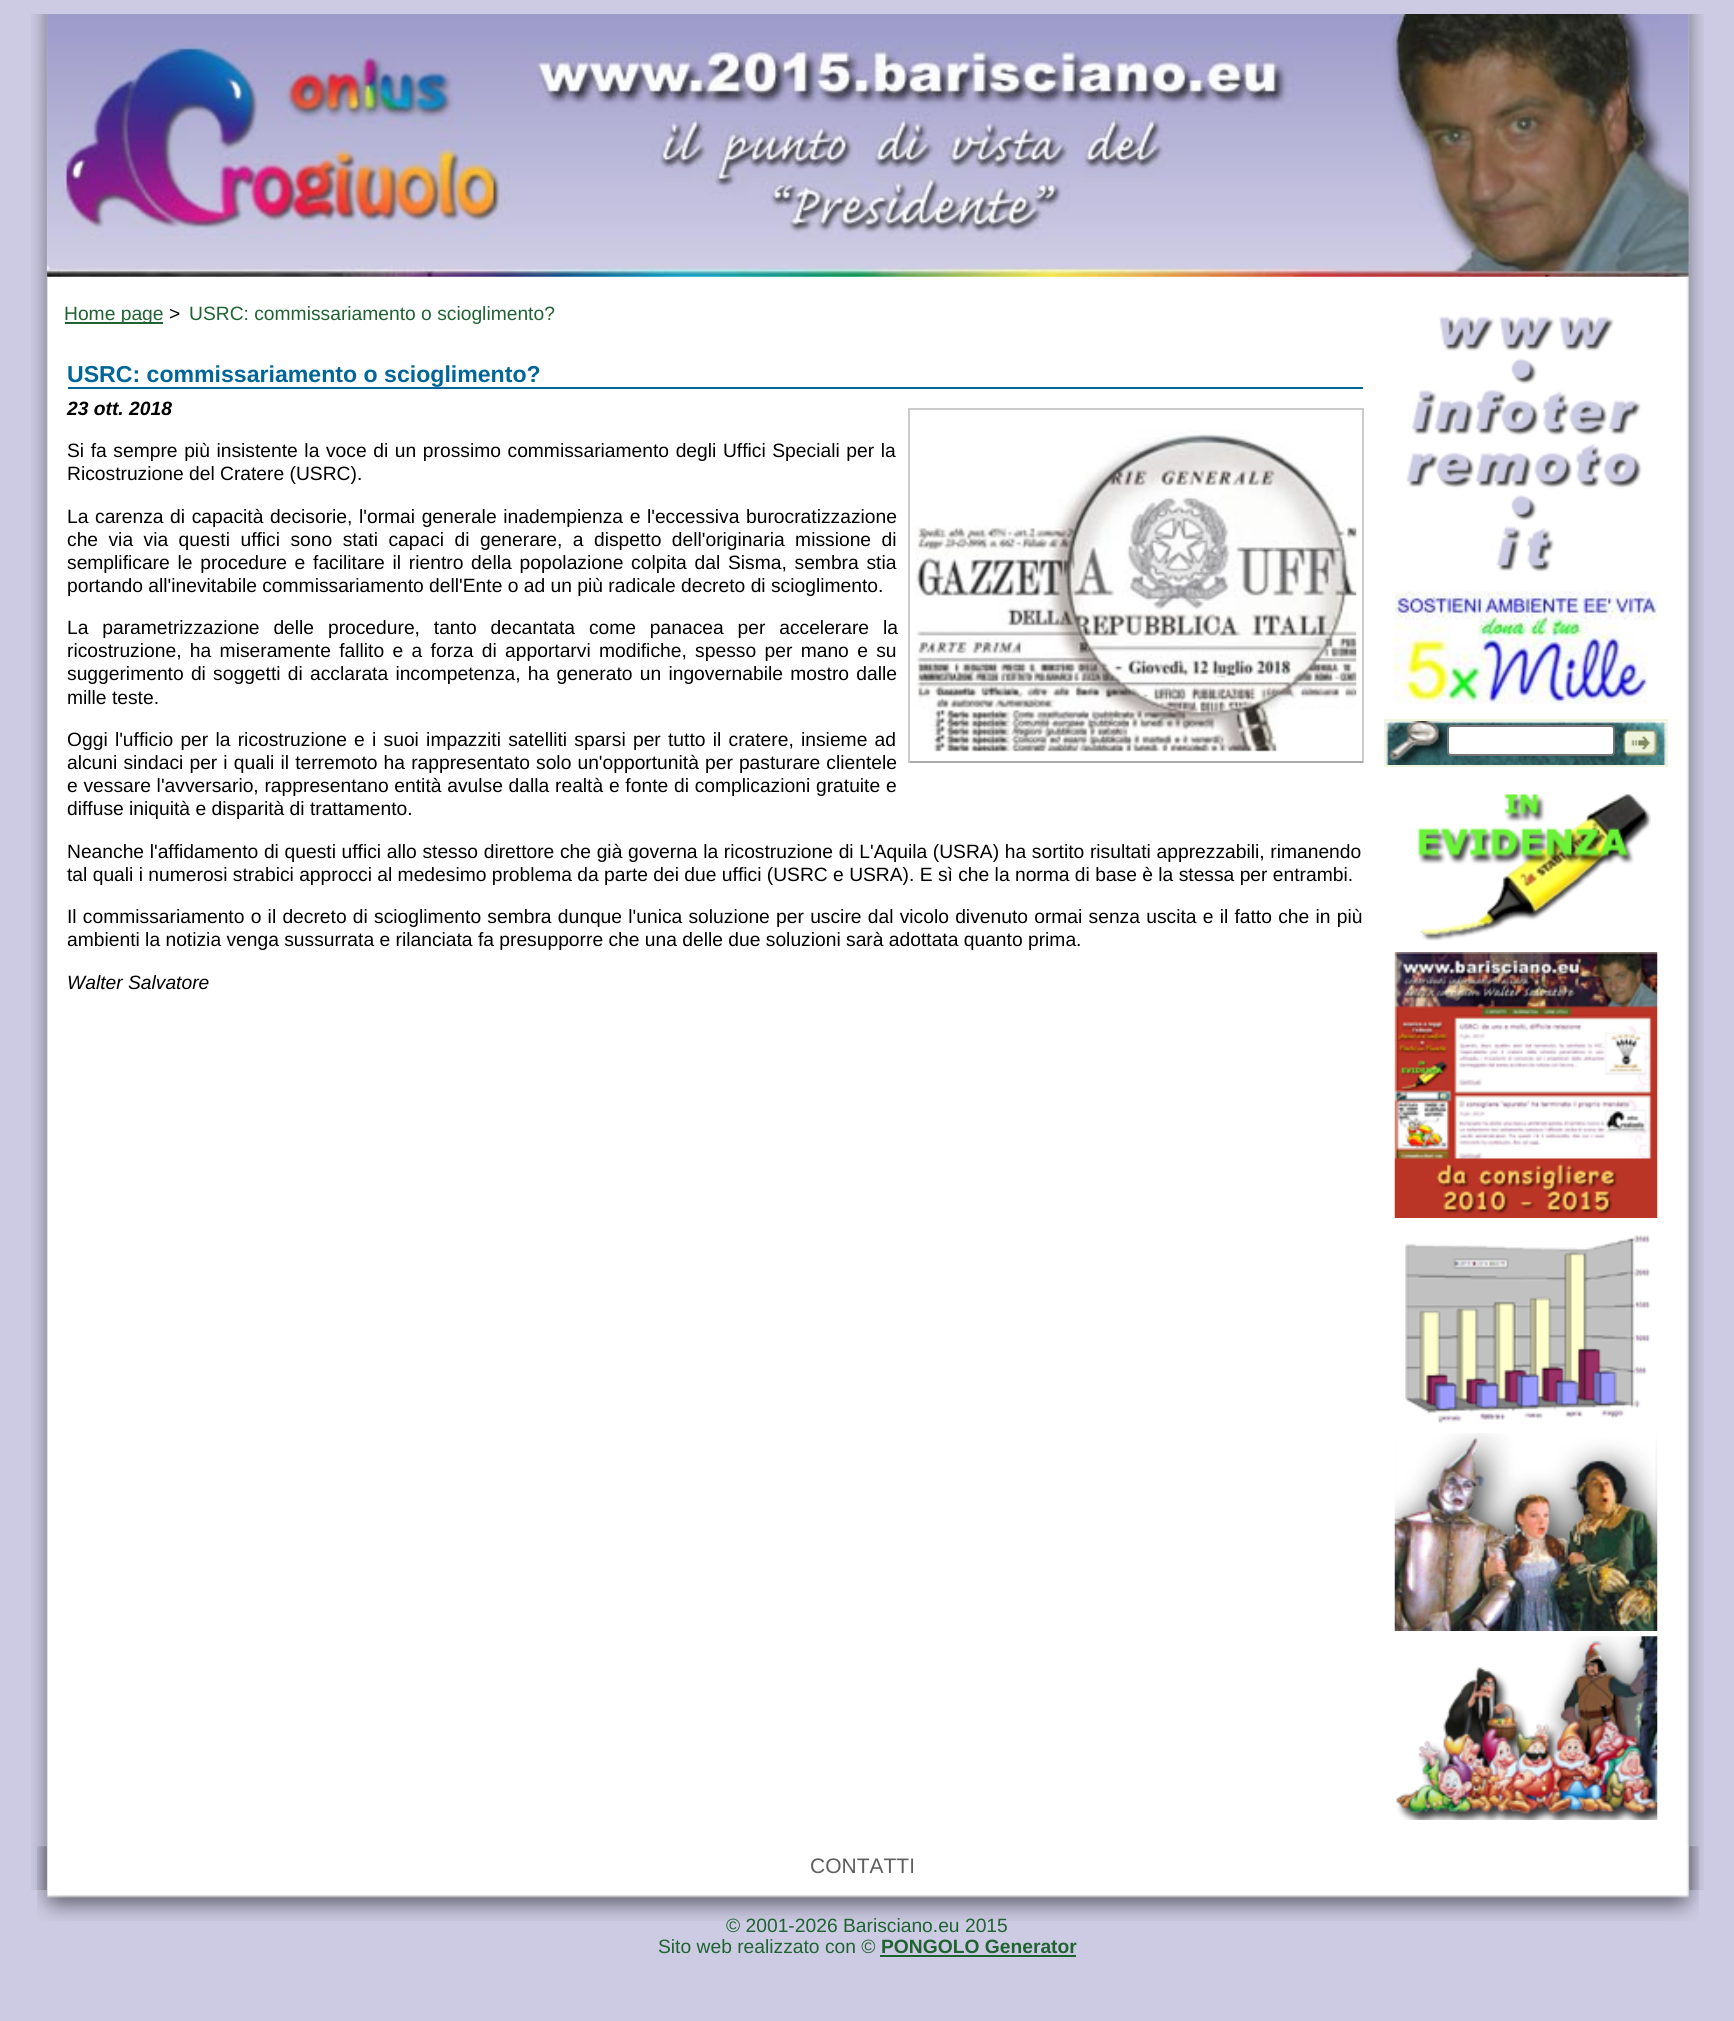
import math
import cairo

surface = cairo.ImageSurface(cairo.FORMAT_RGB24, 1734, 2021)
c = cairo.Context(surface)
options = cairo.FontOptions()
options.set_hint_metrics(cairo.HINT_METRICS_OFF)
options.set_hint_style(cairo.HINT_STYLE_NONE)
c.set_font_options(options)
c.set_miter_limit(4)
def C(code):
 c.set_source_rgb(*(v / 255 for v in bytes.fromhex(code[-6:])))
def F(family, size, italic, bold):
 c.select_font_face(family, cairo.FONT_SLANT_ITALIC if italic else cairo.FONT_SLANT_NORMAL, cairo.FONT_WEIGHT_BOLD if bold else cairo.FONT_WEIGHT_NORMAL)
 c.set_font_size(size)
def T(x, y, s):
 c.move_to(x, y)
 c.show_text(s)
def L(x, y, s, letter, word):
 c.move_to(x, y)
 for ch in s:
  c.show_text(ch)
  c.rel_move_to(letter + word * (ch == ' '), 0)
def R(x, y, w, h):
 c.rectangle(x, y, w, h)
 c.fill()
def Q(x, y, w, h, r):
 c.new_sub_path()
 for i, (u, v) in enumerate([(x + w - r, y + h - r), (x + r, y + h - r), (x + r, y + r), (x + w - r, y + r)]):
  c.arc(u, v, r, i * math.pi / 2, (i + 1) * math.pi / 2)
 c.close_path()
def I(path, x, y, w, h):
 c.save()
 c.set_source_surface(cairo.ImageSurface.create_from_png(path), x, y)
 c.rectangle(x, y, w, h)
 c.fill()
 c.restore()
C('cdcbe3')
c.paint()
I('1.png',31,14,1673,1876)
I('2.png',47,14,1640,263)
I('3.png',47,14,1642,263)
C('1e6331')
R(65,322,98,2)
F('Liberation Sans',19.25,0,0)
T(64,320,'Home page')
C('000000')
T(169,320,'>')
C('1e6331')
T(189,320,'USRC: commissariamento o scioglimento?')
C('006699')
R(68,387,1295,2)
F('Liberation Sans',23.1,0,1)
T(67,382,'USRC: commissariamento o scioglimento?')
F('Liberation Sans',19.25,1,1)
C('000000')
T(67,415,'23 ott. 2018')
C('cccccc')
R(908,408,455,2)
R(1362,408,2,355)
C('aaaaaa')
R(908,761,455,2)
C('cccccc')
R(908,408,2,355)
I('4.png',915,429,442,323)
F('Liberation Sans',19.25,0,0)
C('000000')
L(67,457,'Si fa sempre più insistente la voce di un prossimo commissariamento degli Uffici Speciali per la',0,1.25)
T(67,480,'Ricostruzione del Cratere (USRC).')
L(67,523,'La carenza di capacità decisorie, l\'ormai generale inadempienza e l\'eccessiva burocratizzazione',0,1.25)
L(67,546,'che via via questi uffici sono stati capaci di generare, a dispetto dell\'originaria missione di',0,5.1)
L(67,569,'semplificare le procedure e facilitare il rientro della popolazione colpita dal Sisma, sembra stia',0,2.4)
T(67,592,'portando all\'inevitabile commissariamento dell\'Ente o ad un più radicale decreto di scioglimento.')
L(67,634,'La parametrizzazione delle procedure, tanto decantata come panacea per accelerare la',0,8.5)
L(67,657,'ricostruzione, ha miseramente fallito e a forza di apportarvi modifiche, spesso per mano e su',0,3)
L(67,680,'suggerimento di soggetti di acclarata incompetenza, ha generato un ingovernabile mostro dalle',0,1.9)
T(67,704,'mille teste.')
L(67,746,'Oggi l\'ufficio per la ricostruzione e i suoi impazziti satelliti sparsi per tutto il cratere, insieme ad',0,1.9)
L(67,769,'alcuni sindaci per i quali il terremoto ha rappresentato solo un\'opportunità per pasturare clientele',0,.75)
L(67,792,'e vessare l\'avversario, rappresentano entità avulse dalla realtà e fonte di complicazioni gratuite e',0,.4)
T(67,815,'diffuse iniquità e disparità di trattamento.')
L(67,858,'Neanche l\'affidamento di questi uffici allo stesso direttore che già governa la ricostruzione di L\'Aquila (USRA) ha sortito risultati apprezzabili, rimanendo',0,.3)
T(67,881,'tal quali i numerosi strabici approcci al medesimo problema da parte dei due uffici (USRC e USRA). E sì che la norma di base è la stessa per entrambi.')
L(67,923,'Il commissariamento o il decreto di scioglimento sembra dunque l\'unica soluzione per uscire dal vicolo divenuto ormai senza uscita e il fatto che in più',0,.9)
T(67,946,'ambienti la notizia venga sussurrata e rilanciata fa presupporre che una delle due soluzioni sarà adottata quanto prima.')
F('Liberation Sans',19.25,1,0)
T(67,989,'Walter Salvatore')
I('5.png',1406,316,236,257)
I('6.png',1394,591,264,114)
I('7.png',1386,721,280,44)
c.rectangle(1385,720,282,46)
C('f0f6dc')
c.stroke()
C('ffffff')
Q(1448,726,166,29,3)
c.fill_preserve()
C('767676')
c.stroke()
I('8.png',1623,729,35,28)
I('9.png',1417,794,234,147)
I('10.png',1394,952,264,266)
I('11.png',1405,1235,246,189)
I('12.png',1394,1433,264,198)
I('13.png',1396,1636,262,184)
F('Liberation Sans',19.25,0,0)
C('1e6331')
T(726,1932,'© 2001-2026 Barisciano.eu 2015')
I('14.png',37,1846,1662,75)
F('Liberation Sans',21,0,0)
C('5f5e5e')
T(810,1873,'CONTATTI')
F('Liberation Sans',19.25,0,0)
C('1e6331')
T(658,1953,'Sito web realizzato con ©')
F('Liberation Sans',19.25,0,1)
T(881,1953,'PONGOLO Generator')
R(880,1955,196,2)
surface.write_to_png('o.png')
